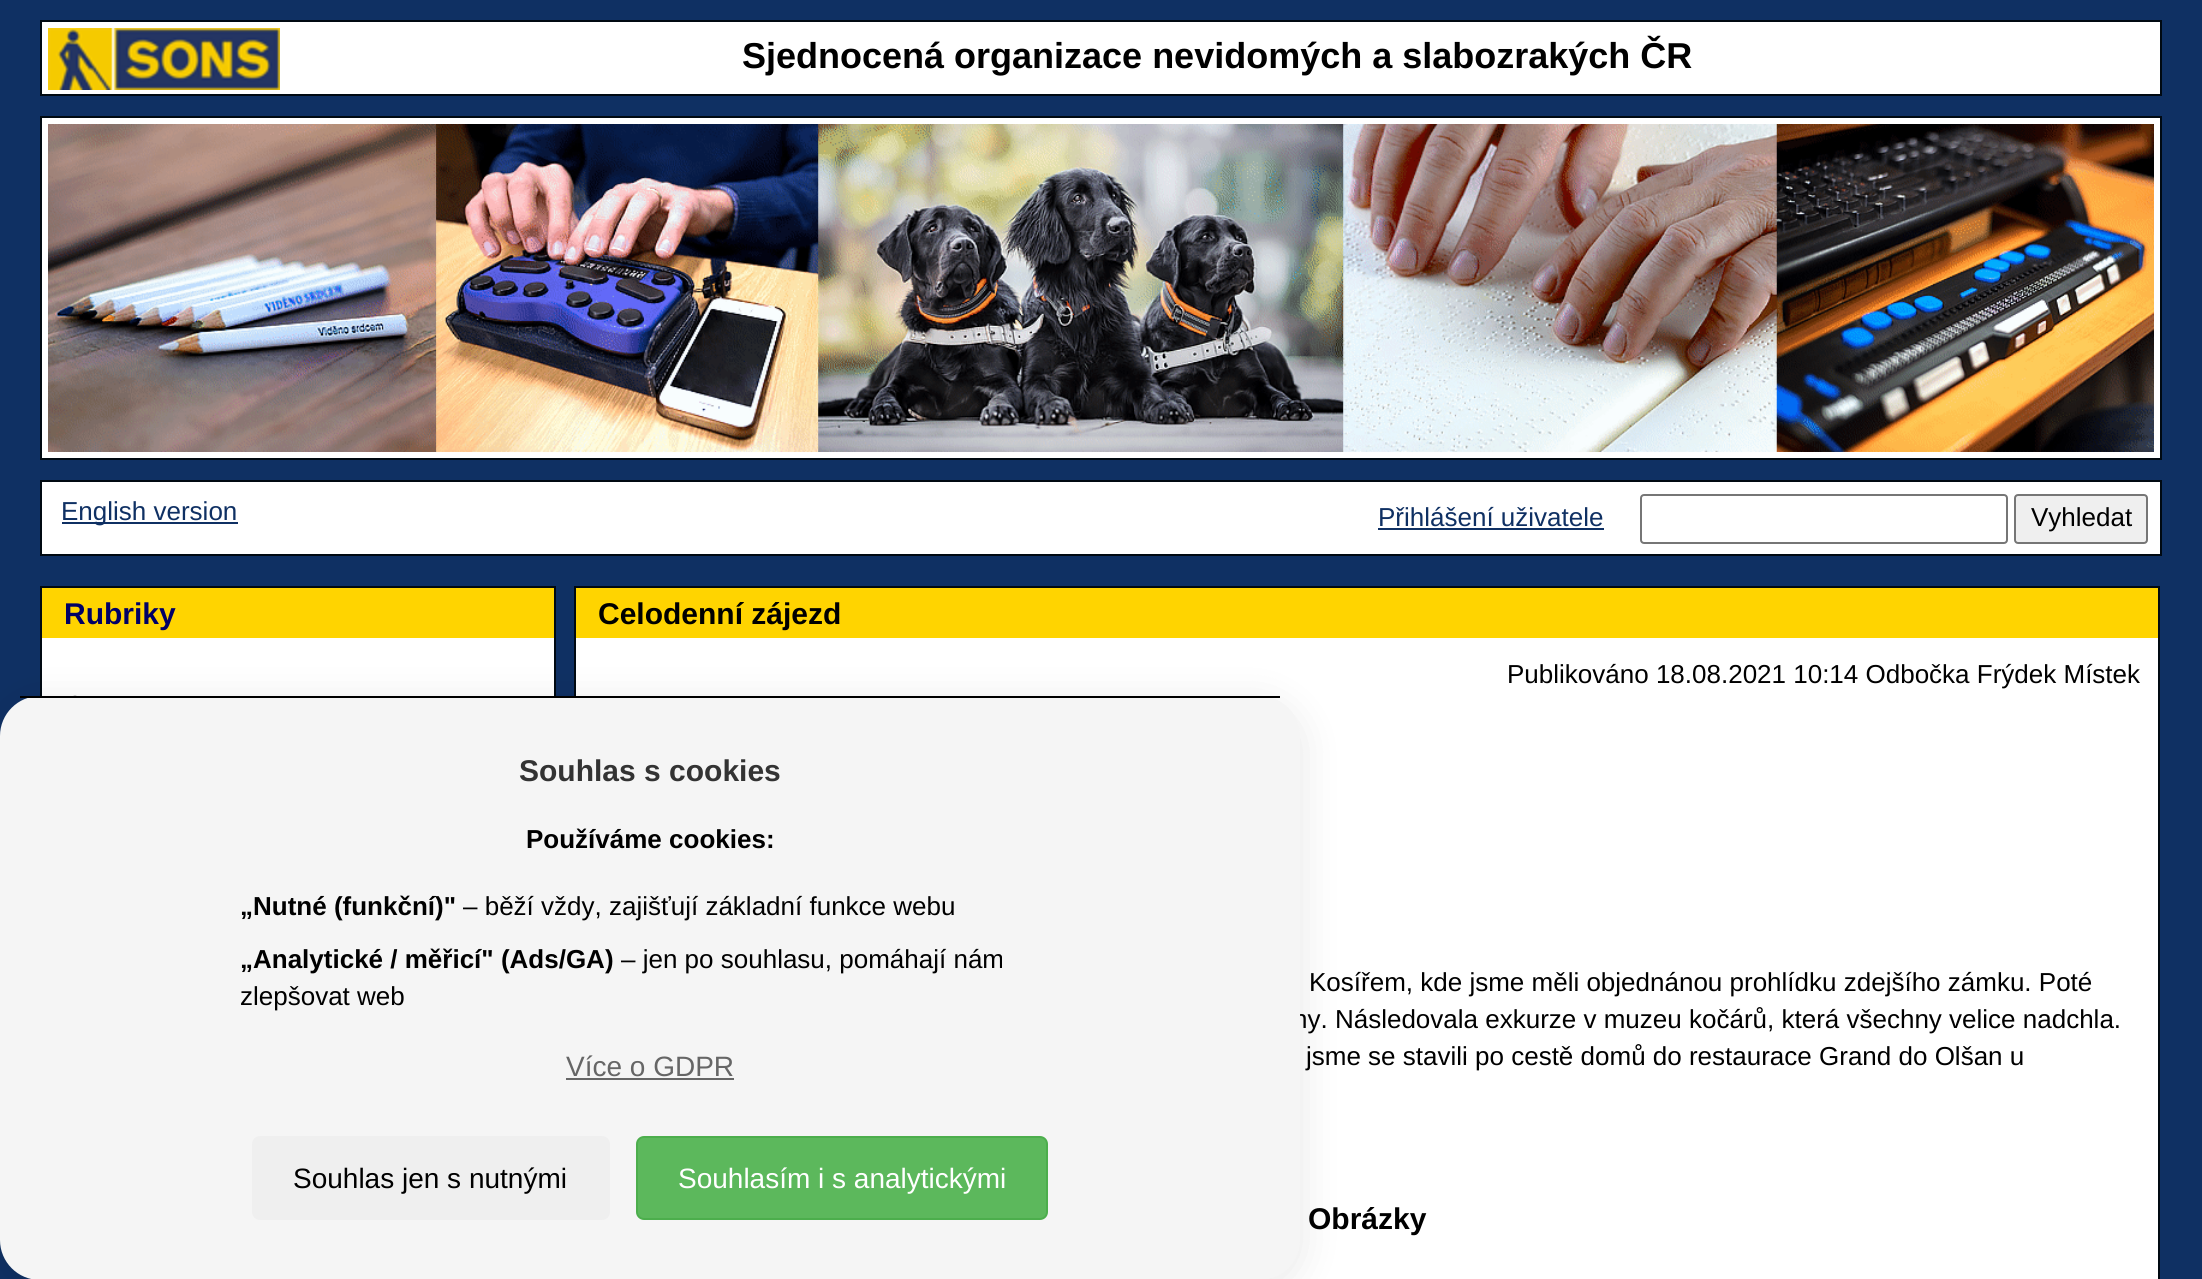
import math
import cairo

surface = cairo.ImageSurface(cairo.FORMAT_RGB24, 2202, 1279)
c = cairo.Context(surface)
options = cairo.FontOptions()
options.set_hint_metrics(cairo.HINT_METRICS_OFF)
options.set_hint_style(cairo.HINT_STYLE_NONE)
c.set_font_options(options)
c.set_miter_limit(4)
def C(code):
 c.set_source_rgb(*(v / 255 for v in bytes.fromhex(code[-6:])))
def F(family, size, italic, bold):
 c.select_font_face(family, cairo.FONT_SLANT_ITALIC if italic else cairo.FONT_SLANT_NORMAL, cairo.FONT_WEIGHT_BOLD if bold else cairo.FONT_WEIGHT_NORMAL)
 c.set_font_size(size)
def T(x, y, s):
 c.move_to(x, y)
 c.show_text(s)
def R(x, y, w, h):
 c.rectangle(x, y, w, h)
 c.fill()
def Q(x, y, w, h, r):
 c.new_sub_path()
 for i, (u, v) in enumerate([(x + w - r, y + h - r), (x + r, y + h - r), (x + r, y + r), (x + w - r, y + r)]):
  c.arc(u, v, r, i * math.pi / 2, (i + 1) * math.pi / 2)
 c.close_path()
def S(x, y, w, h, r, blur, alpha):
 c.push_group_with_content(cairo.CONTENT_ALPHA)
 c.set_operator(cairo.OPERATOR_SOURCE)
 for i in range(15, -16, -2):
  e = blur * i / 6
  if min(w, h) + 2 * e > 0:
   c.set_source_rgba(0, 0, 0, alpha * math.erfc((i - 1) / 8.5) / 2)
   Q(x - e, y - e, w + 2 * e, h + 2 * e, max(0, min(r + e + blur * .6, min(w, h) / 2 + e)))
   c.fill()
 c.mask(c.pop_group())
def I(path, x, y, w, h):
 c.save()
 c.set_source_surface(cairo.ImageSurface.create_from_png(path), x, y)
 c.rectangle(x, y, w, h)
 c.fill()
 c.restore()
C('0f3063')
c.paint()
c.rectangle(41,21,2120,74)
C('000911')
c.stroke()
C('ffffff')
R(42,22,2118,72)
I('1.png',48,28,232,62)
F('Liberation Sans',36,0,1)
C('000000')
T(742,68,'Sjednocená organizace nevidomých a slabozrakých ČR')
c.rectangle(41,117,2120,342)
C('000911')
c.stroke()
C('ffffff')
R(42,118,2118,340)
I('2.png',48,124,2106,328)
c.rectangle(41,481,2120,74)
C('000911')
c.stroke()
C('ffffff')
R(42,482,2118,72)
C('0f3063')
R(62,522,176,2)
F('Liberation Sans',26,0,0)
T(61,520,'English version')
T(1378,526,'Přihlášení uživatele')
R(1378,528,226,2)
Q(1641,495,366,48,3)
C('767676')
c.stroke()
C('efefef')
Q(2015,495,132,48,3)
c.fill_preserve()
C('767676')
c.stroke()
C('000000')
T(2031,526,'Vyhledat')
c.rectangle(41,587,514,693)
C('000911')
c.stroke()
C('ffd400')
R(42,588,512,50)
F('Liberation Sans',30,0,1)
C('000066')
T(64,624,'Rubriky')
C('ffffff')
R(42,638,512,58)
I('3.png',73,695,4,1)
I('4.png',73,695,4,1)
c.rectangle(575,587,1584,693)
C('000911')
c.stroke()
C('ffd400')
R(576,588,1582,50)
C('000000')
T(598,624,'Celodenní zájezd')
C('ffffff')
R(576,638,1582,641)
F('Liberation Sans',26,0,0)
C('000000')
T(1507,683,'Publikováno 18.08.2021 10:14 Odbočka Frýdek Místek')
T(1309,991,'Kosířem, kde jsme měli objednánou prohlídku zdejšího zámku. Poté')
T(1293,1028,'ny. Následovala exkurze v muzeu kočárů, která všechny velice nadchla.')
T(1306,1065,'jsme se stavili po cestě domů do restaurace Grand do Olšan u')
F('Liberation Sans',30,0,1)
T(1308,1229,'Obrázky')
C('000000')
S(0,704,1300,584,40,20,.1)
C('f5f5f5')
Q(0,696,1300,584,40)
c.fill()
C('000000')
R(20,696,1260,2)
C('333333')
T(519,781,'Souhlas s cookies')
F('Liberation Sans',26,0,1)
C('000000')
T(526,848,'Používáme cookies:')
T(240,915,'„Nutné (funkční)"')
F('Liberation Sans',26,0,0)
T(463,915,'– běží vždy, zajišťují základní funkce webu')
F('Liberation Sans',26,0,1)
T(240,968,'„Analytické / měřicí" (Ads/GA)')
F('Liberation Sans',26,0,0)
T(621,968,'– jen po souhlasu, pomáhají nám')
T(240,1005,'zlepšovat web')
F('Liberation Sans',28,0,0)
C('666666')
T(566,1076,'Více o GDPR')
R(566,1078,168,2)
C('efefef')
Q(252,1136,358,84,8)
c.fill()
C('000000')
T(293,1188,'Souhlas jen s nutnými')
C('5cb85c')
Q(637,1137,410,82,7)
c.fill_preserve()
C('4cae4c')
c.stroke()
C('ffffff')
T(678,1188,'Souhlasím i s analytickými')
surface.write_to_png('o.png')
